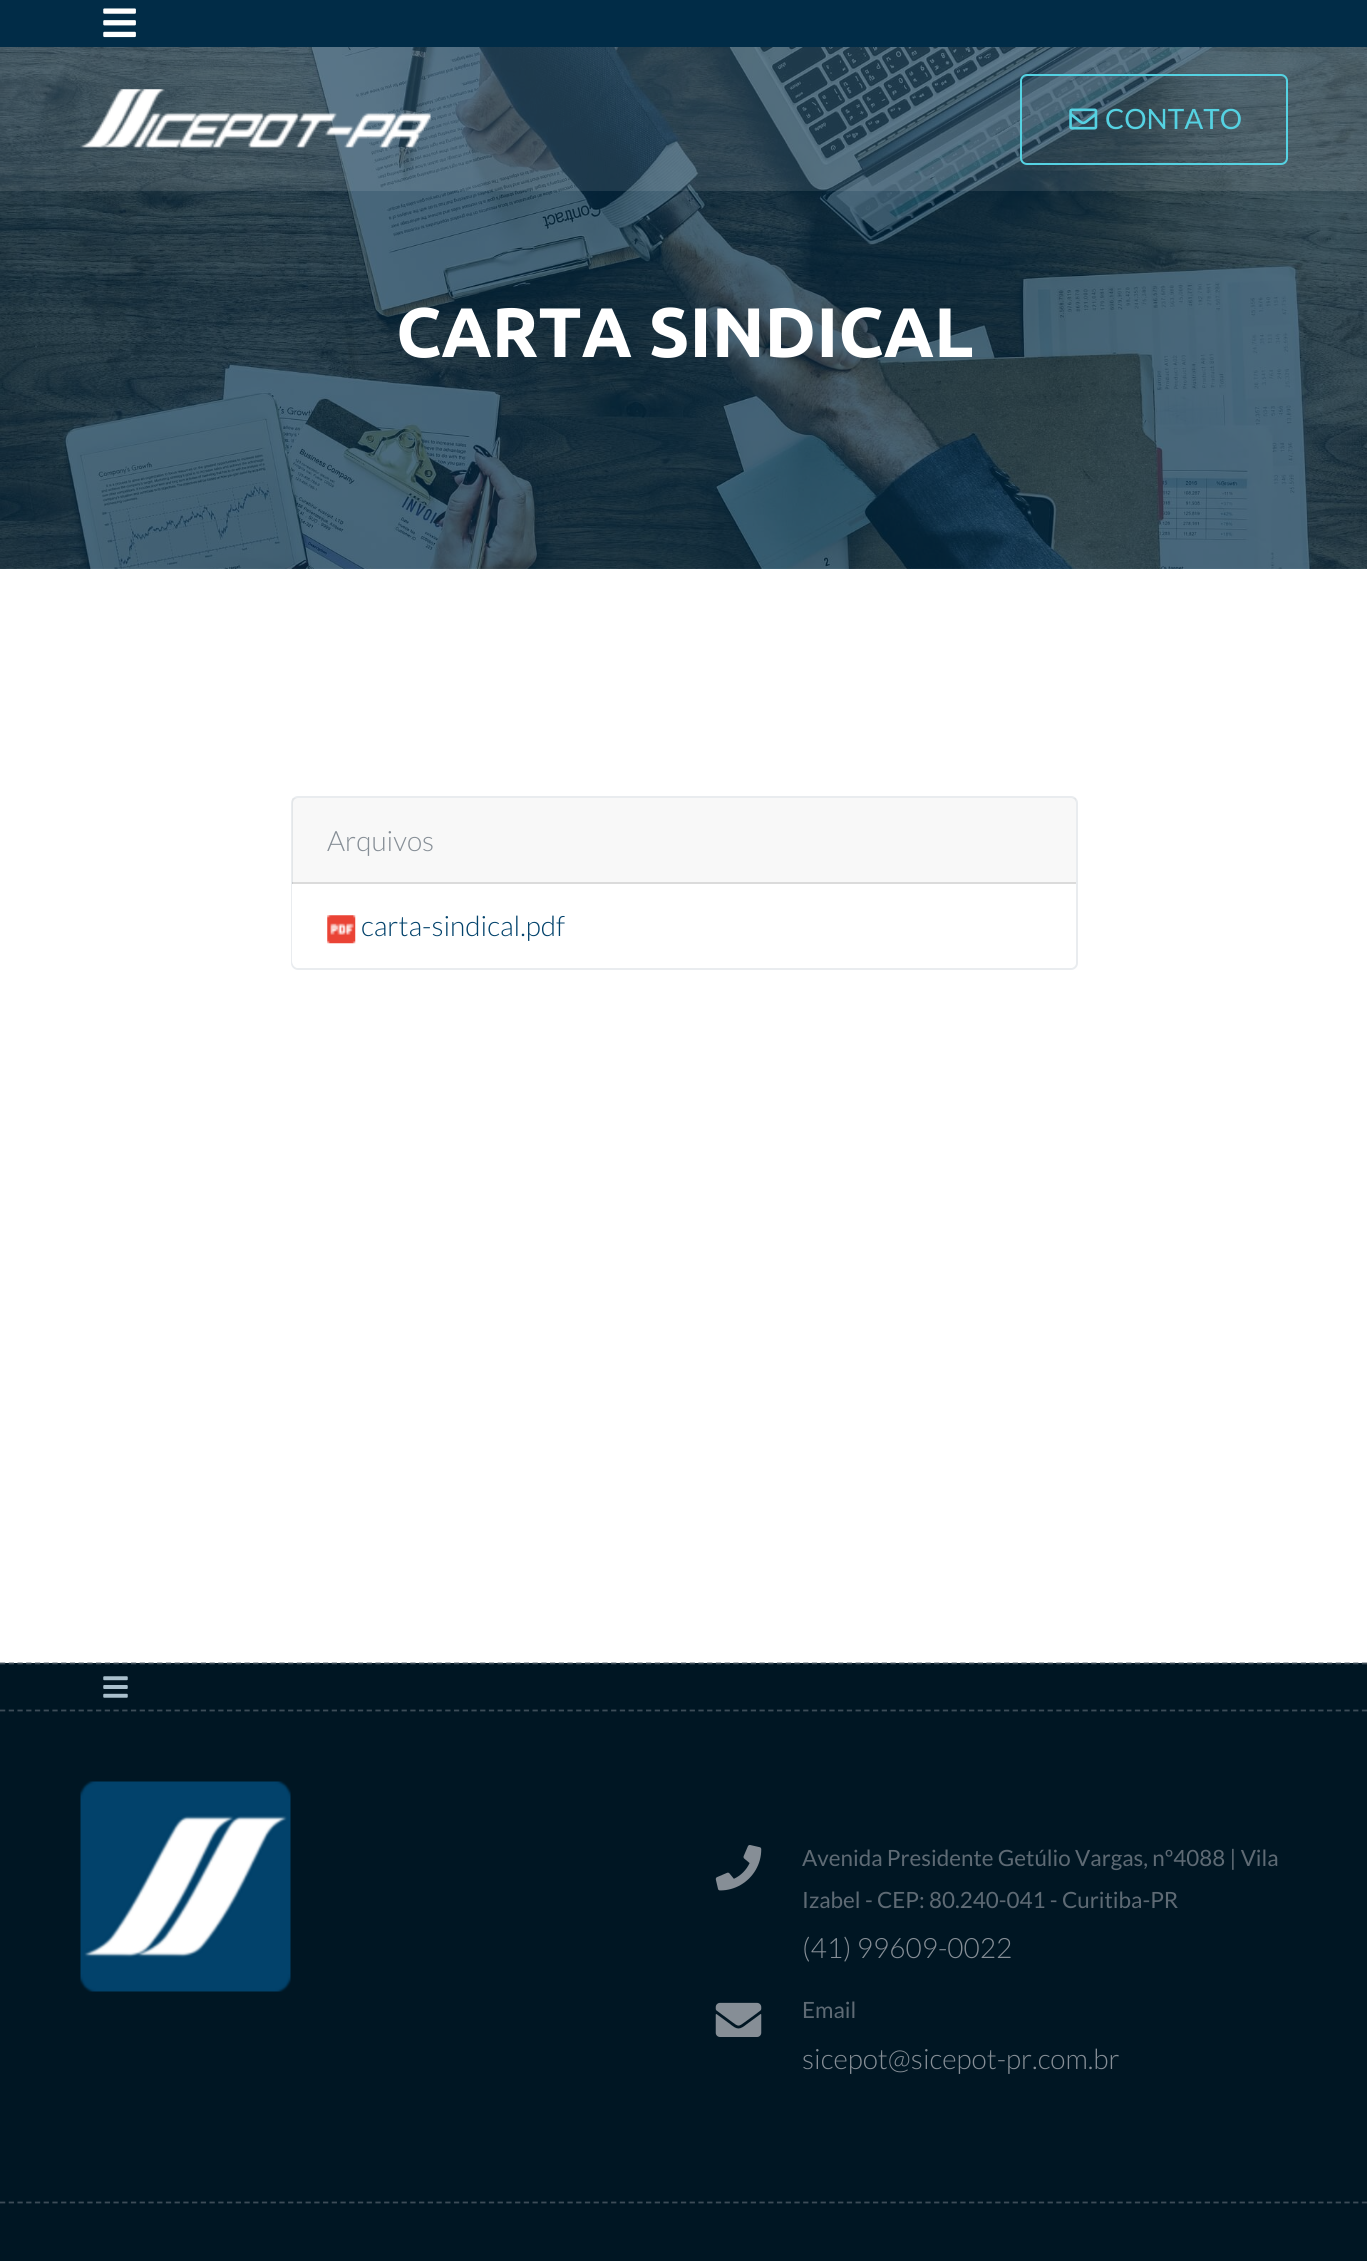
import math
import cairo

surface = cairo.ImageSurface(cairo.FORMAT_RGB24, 1367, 2261)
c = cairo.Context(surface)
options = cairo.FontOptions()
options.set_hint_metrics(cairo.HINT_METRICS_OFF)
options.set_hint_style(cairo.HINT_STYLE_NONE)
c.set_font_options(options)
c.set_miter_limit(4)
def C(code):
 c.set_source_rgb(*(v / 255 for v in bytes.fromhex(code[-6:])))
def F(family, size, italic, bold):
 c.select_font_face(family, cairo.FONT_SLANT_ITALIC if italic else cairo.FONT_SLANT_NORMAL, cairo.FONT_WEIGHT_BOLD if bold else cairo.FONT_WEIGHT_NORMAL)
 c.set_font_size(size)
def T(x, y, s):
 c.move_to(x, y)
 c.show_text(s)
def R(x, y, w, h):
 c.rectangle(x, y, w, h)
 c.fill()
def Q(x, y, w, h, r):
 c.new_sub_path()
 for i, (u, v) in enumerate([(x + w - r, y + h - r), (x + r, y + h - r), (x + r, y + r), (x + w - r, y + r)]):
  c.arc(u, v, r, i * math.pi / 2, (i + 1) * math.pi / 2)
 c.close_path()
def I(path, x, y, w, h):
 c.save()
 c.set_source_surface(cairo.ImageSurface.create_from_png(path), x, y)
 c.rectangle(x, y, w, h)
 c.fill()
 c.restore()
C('ffffff')
c.paint()
C('012c47')
R(0,0,1367,47)
I('1.png',103,8,33,30)
I('4.png',0,47,1367,522)
c.set_source_rgba(1,1,1,0.1)
R(0,47,1367,144)
I('2.png',80,89,351,59)
Q(1021,75,266,89,6)
C('55d2e2')
c.stroke()
I('3.png',1069,108,29,22)
F('Lato',28,0,0)
T(1105,129,'CONTATO')
F('Ubuntu',70,0,1)
C('ffffff')
T(396,357,'CARTA SINDICAL')
Q(292,797,785,172,6)
C('e9ecef')
c.stroke()
c.set_source_rgba(0,0,0,0.03)
R(292,798,784,86)
c.set_source_rgba(0,0,0,0.12)
R(292,882,784,2)
F('Lato Light',28,0,0)
C('868e96')
T(327,851,'Arquivos')
C('ffffff')
c.new_path()
c.move_to(292,884)
c.line_to(1076,884)
c.line_to(1076,961)
c.curve_to(1076,965,1073,968,1069,968)
c.line_to(299,968)
c.curve_to(295,968,292,965,292,961)
c.close_path()
c.fill()
I('5.png',327,915,29,29)
C('02426b')
T(361,936,'carta-sindical.pdf')
C('001623')
R(0,1663,1367,598)
c.new_path()
c.move_to(0,1663.5)
c.line_to(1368.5,1663.5)
C('3c4c57')
c.set_line_width(1.8)
c.set_dash([5.25,3.48])
c.stroke()
c.new_path()
c.move_to(0,1710.5)
c.line_to(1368.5,1710.5)
c.stroke()
I('6.png',103,1676,25,22)
I('7.png',80,1781,211,211)
I('8.png',715,1845,47,46)
F('Lato',22.4,0,0)
C('5e6a74')
T(802,1866,'Avenida Presidente Getúlio Vargas, nº4088 | Vila')
T(802,1908,'Izabel - CEP: 80.240-041 - Curitiba-PR')
F('Lato Light',28,0,0)
C('868e96')
T(802,1958,'(41) 99609-0022')
I('9.png',715,2002,47,35)
F('Lato',22.4,0,0)
C('5e6a74')
T(802,2018,'Email')
F('Lato Light',28,0,0)
C('868e96')
T(802,2069,'sicepot@sicepot-pr.com.br')
c.new_path()
c.move_to(0,2202.5)
c.line_to(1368.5,2202.5)
C('3c4c57')
c.stroke()
surface.write_to_png('o.png')
